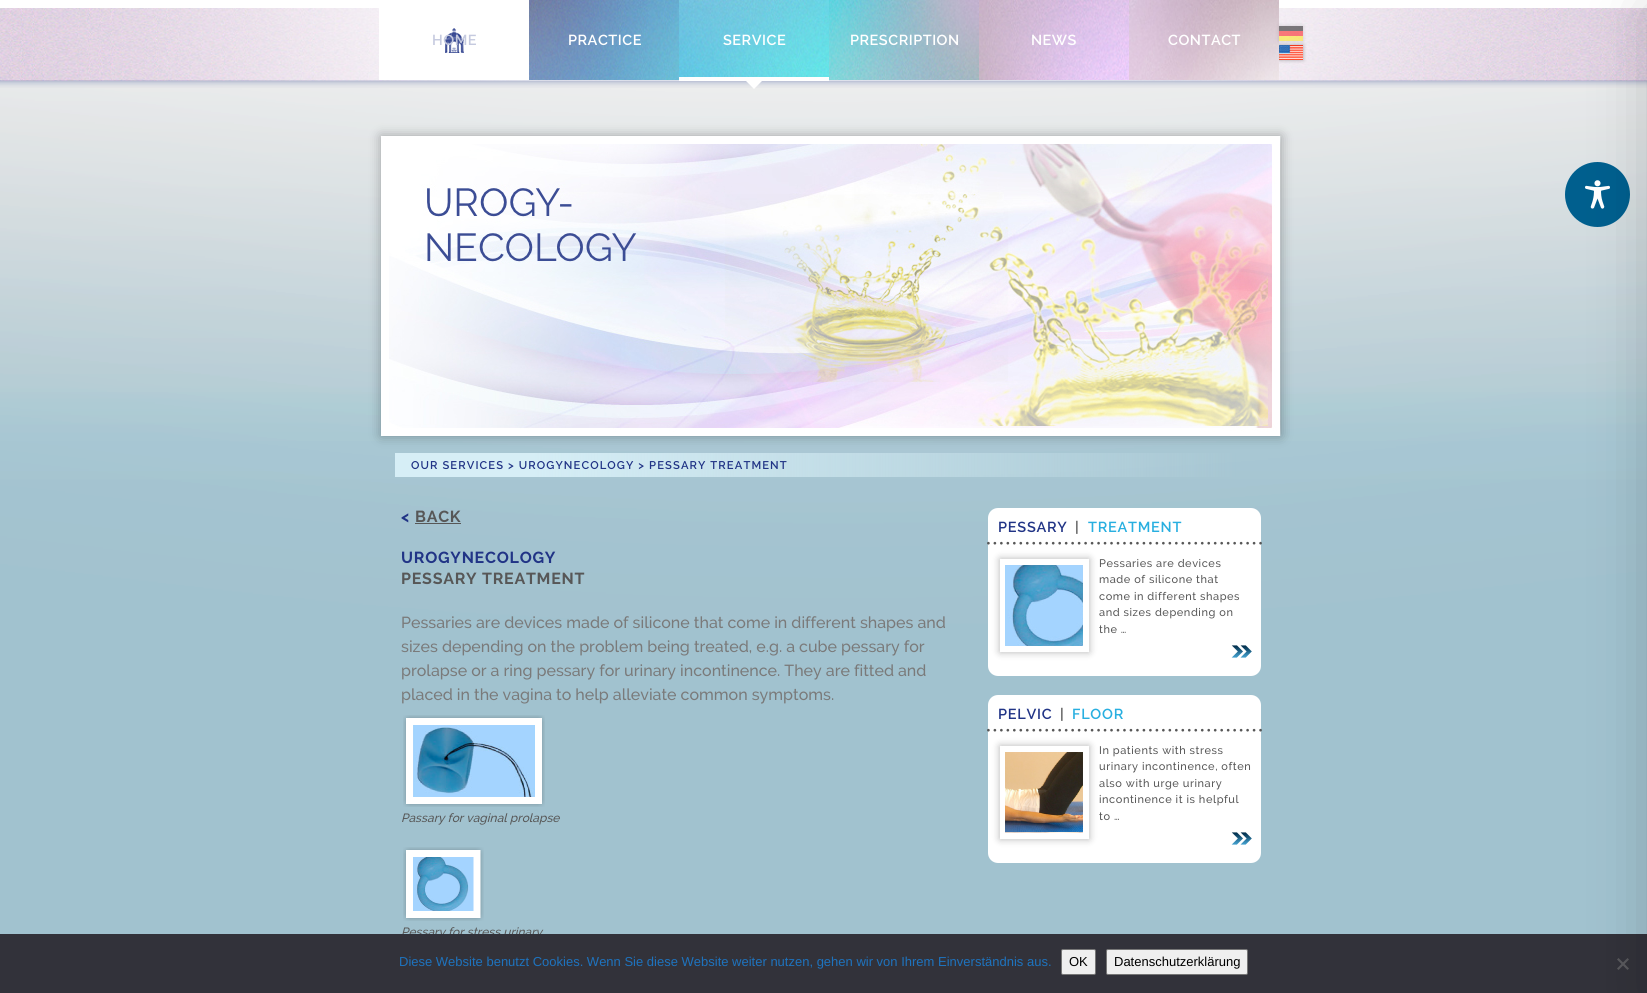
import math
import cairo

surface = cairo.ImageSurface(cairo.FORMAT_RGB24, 1647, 993)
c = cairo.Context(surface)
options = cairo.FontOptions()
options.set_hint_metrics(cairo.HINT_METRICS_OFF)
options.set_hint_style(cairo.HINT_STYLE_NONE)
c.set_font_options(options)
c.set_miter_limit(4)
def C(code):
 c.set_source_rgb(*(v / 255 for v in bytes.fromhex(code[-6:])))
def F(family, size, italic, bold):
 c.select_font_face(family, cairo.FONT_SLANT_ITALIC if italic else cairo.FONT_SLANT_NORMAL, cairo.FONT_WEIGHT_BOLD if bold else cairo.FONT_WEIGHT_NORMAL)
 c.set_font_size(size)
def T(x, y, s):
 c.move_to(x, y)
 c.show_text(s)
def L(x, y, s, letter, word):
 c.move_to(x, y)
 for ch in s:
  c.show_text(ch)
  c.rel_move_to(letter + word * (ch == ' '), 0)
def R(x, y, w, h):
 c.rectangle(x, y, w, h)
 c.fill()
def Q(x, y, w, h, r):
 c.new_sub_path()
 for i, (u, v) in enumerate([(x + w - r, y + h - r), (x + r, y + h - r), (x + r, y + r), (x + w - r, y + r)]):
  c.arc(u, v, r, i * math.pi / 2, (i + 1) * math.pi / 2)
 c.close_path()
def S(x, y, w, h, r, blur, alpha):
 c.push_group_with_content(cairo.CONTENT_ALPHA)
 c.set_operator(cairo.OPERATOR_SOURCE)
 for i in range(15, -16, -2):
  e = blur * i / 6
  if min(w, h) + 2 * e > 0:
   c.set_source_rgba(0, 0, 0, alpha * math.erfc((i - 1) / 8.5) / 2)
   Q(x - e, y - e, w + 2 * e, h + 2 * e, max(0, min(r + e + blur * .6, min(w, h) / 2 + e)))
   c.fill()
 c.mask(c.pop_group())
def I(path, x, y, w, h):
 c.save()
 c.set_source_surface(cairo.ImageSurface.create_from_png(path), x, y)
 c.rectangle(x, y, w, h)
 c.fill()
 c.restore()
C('ffffff')
c.paint()
I('1.png',0,81,1647,853)
I('2.png',0,0,1647,88)
I('3.png',379,8,150,72)
F('Raleway SemiBold',14.5,0,0)
C('c5cadf')
L(432,45,'HOME',.5,0)
I('4.png',529,0,150,80)
C('ffffff')
L(568,45,'PRACTICE',.5,0)
I('5.png',679,0,150,77)
L(723,45,'SERVICE',.5,0)
R(679,80,150,1)
c.new_path()
c.move_to(746,81)
c.line_to(762,81)
c.line_to(754,89)
c.close_path()
c.fill()
I('6.png',829,0,150,80)
L(850,45,'PRESCRIPTION',.5,0)
I('7.png',979,0,150,80)
L(1031,45,'NEWS',.5,0)
C('000000')
S(1279,45,24,15,0,2,.3)
I('8.png',1129,0,150,80)
C('ffffff')
L(1168,45,'CONTACT',.5,0)
I('10.png',1279,45,24,15)
c.save()
c.set_fill_rule(cairo.FILL_RULE_EVEN_ODD)
c.new_path()
c.move_to(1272,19)
c.line_to(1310,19)
c.line_to(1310,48)
c.line_to(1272,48)
c.close_path()
c.move_to(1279,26)
c.line_to(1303,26)
c.line_to(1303,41)
c.line_to(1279,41)
c.close_path()
c.clip()
C('000000')
S(1279,26,24,15,0,2,.15)
c.restore()
I('9.png',1279,26,24,15)
C('005f8e')
c.arc(1597.5,194.5,32.5,0,2 * math.pi)
c.fill()
I('11.png',1585,180,25,29)
F('Raleway Medium',12,1,0)
C('575757')
T(401,936,'Pessary for stress urinary')
C('32323a')
R(0,934,1647,59)
C('59595d')
c.new_path()
c.move_to(1627.5,958)
c.line_to(1629,959.5)
c.line_to(1618.5,970)
c.line_to(1617,968.5)
c.close_path()
c.fill()
c.new_path()
c.move_to(1617,959.5)
c.line_to(1618.5,958)
c.line_to(1629,968.5)
c.line_to(1627.5,970)
c.close_path()
c.fill()
C('000000')
S(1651,10,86,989,0,30,.2)
S(381,136,900,300,0,6,.3)
I('12.png',381,136,900,300)
F('Raleway SemiBold',11.2,0,0)
C('213486')
L(411,469,'OUR SERVICES > UROGYNECOLOGY > PESSARY TREATMENT',1.1,0)
F('Raleway',16,0,1)
L(401,522,'<',.75,0)
C('575757')
L(415,522,'BACK',.75,0)
R(415,523,46,1)
C('213486')
L(401,563,'UROGYNECOLOGY',.75,0)
C('575757')
L(401,584,'PESSARY TREATMENT',.75,0)
F('Raleway Medium',16,0,0)
C('7a7a7a')
T(401,628,'Pessaries are devices made of silicone that come in different shapes and')
T(401,652,'sizes depending on the problem being treated, e.g. a cube pessary for')
T(401,676,'prolapse or a ring pessary for urinary incontinence. They are fitted and')
T(401,700,'placed in the vagina to help alleviate common symptoms.')
I('13.png',403,715,142,92)
F('Raleway Medium',12,1,0)
C('575757')
T(401,822,'Passary for vaginal prolapse')
I('14.png',403,847,81,74)
C('ffffff')
Q(988,508,273,168,10)
c.fill()
c.new_path()
c.move_to(988.4,543.2)
c.line_to(1260.8,543.2)
C('575757')
c.set_line_width(2.7)
c.set_line_cap(cairo.LINE_CAP_ROUND)
c.set_dash([0,6.48])
c.stroke()
F('Raleway SemiBold',14.5,0,0)
C('213486')
L(998,532,'PESSARY',.75,0)
C('575757')
L(1075,532,'|',.75,0)
C('28afe0')
L(1088,532,'TREATMENT',.75,0)
c.save()
c.set_fill_rule(cairo.FILL_RULE_EVEN_ODD)
c.new_path()
c.move_to(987,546)
c.line_to(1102,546)
c.line_to(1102,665)
c.line_to(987,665)
c.close_path()
c.move_to(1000,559)
c.line_to(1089,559)
c.line_to(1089,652)
c.line_to(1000,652)
c.close_path()
c.clip()
C('000000')
S(1000,559,89,93,0,4,.3)
c.restore()
I('15.png',1005,565,78,81)
F('Raleway Medium',11,0,0)
C('575757')
L(1099,567,'Pessaries are devices',.55,0)
L(1099,583,'made of silicone that',.55,0)
L(1099,600,'come in different shapes',.55,0)
L(1099,616,'and sizes depending on',.55,0)
L(1099,633,'the …',.55,0)
I('16.png',1231,645,21,13)
C('ffffff')
Q(988,695,273,168,10)
c.fill()
c.new_path()
c.move_to(988.4,730.2)
c.line_to(1260.8,730.2)
C('575757')
c.stroke()
F('Raleway SemiBold',14.5,0,0)
C('213486')
L(998,719,'PELVIC',.75,0)
C('575757')
L(1060,719,'|',.75,0)
C('28afe0')
L(1072,719,'FLOOR',.75,0)
c.save()
c.set_fill_rule(cairo.FILL_RULE_EVEN_ODD)
c.new_path()
c.move_to(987,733)
c.line_to(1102,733)
c.line_to(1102,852)
c.line_to(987,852)
c.close_path()
c.move_to(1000,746)
c.line_to(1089,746)
c.line_to(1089,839)
c.line_to(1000,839)
c.close_path()
c.clip()
C('000000')
S(1000,746,89,93,0,4,.3)
c.restore()
I('17.png',1005,752,78,81)
F('Raleway Medium',11,0,0)
C('575757')
L(1099,754,'In patients with stress',.55,0)
L(1099,770,'urinary incontinence, often',.55,0)
L(1099,787,'also with urge urinary',.55,0)
L(1099,803,'incontinence it is helpful',.55,0)
L(1099,820,'to …',.55,0)
I('16.png',1231,832,21,13)
F('Liberation Sans',13,0,0)
C('1e73be')
T(399,966,'Diese Website benutzt Cookies. Wenn Sie diese Website weiter nutzen, gehen wir von Ihrem Einverständnis aus.')
C('efefef')
Q(1061.5,949.5,34,25,1.5)
c.fill_preserve()
C('767676')
c.set_line_width(1)
c.set_line_cap(cairo.LINE_CAP_BUTT)
c.set_dash([])
c.stroke()
C('000000')
T(1069,966,'OK')
C('efefef')
Q(1106.5,949.5,141,25,1.5)
c.fill_preserve()
C('767676')
c.stroke()
C('000000')
T(1114,966,'Datenschutzerklärung')
surface.write_to_png('o.png')
